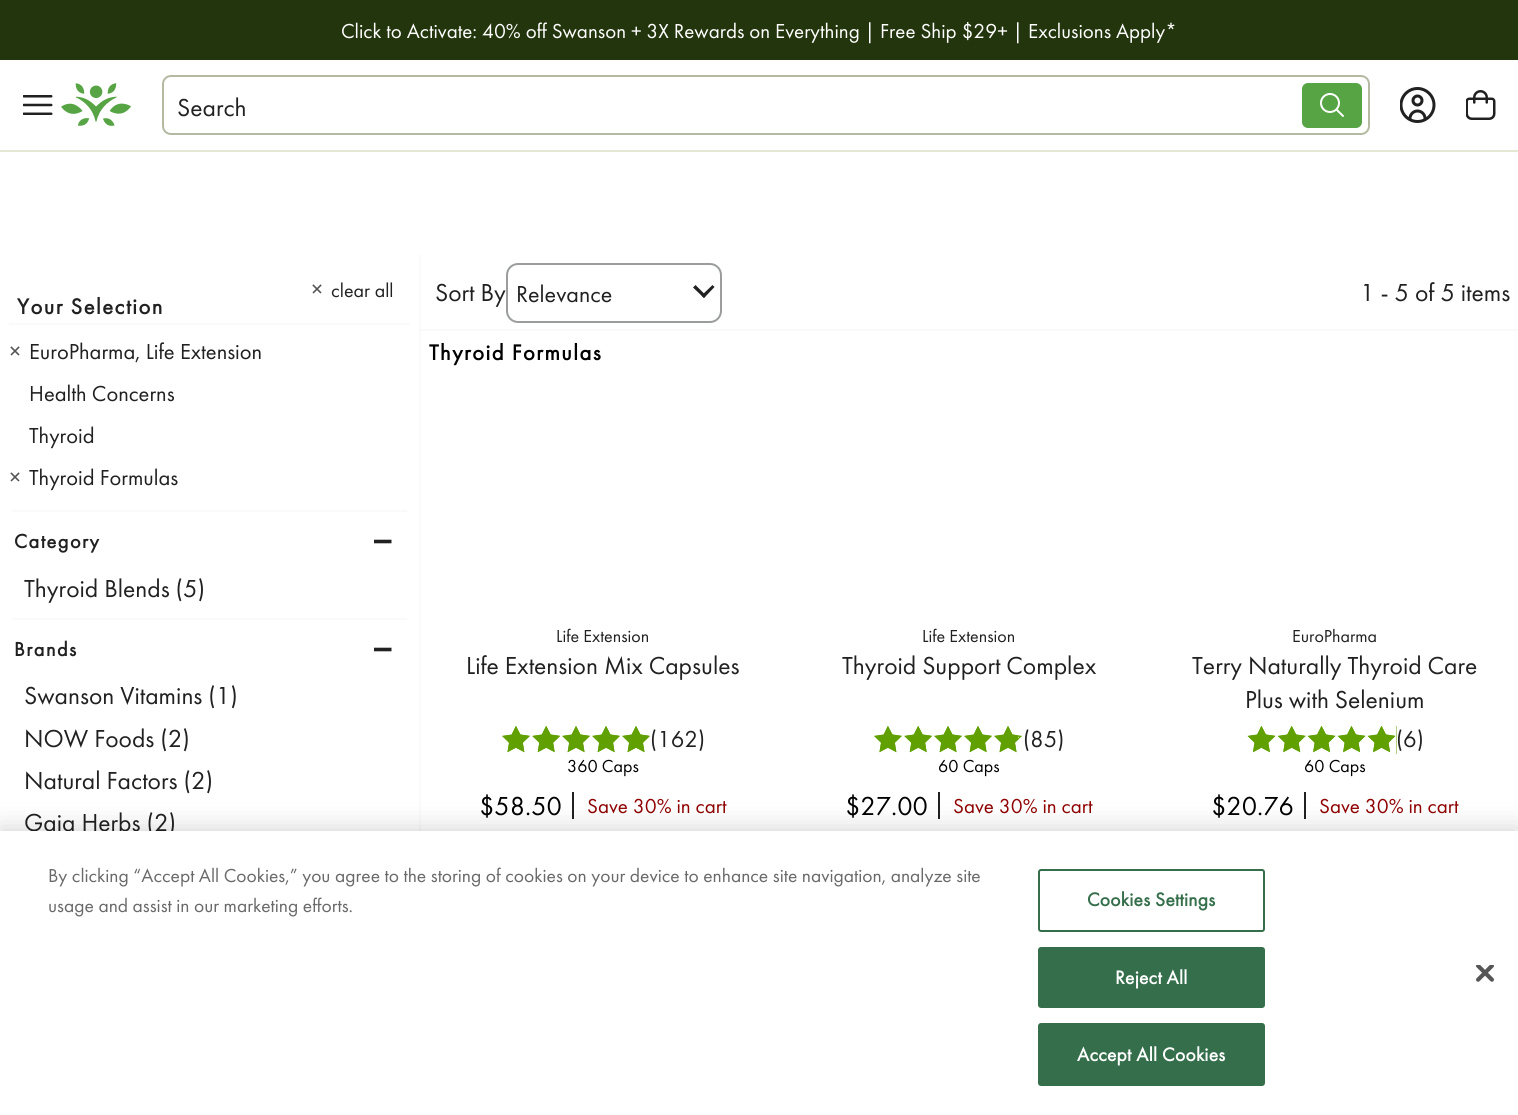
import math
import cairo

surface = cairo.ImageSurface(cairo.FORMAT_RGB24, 1518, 1115)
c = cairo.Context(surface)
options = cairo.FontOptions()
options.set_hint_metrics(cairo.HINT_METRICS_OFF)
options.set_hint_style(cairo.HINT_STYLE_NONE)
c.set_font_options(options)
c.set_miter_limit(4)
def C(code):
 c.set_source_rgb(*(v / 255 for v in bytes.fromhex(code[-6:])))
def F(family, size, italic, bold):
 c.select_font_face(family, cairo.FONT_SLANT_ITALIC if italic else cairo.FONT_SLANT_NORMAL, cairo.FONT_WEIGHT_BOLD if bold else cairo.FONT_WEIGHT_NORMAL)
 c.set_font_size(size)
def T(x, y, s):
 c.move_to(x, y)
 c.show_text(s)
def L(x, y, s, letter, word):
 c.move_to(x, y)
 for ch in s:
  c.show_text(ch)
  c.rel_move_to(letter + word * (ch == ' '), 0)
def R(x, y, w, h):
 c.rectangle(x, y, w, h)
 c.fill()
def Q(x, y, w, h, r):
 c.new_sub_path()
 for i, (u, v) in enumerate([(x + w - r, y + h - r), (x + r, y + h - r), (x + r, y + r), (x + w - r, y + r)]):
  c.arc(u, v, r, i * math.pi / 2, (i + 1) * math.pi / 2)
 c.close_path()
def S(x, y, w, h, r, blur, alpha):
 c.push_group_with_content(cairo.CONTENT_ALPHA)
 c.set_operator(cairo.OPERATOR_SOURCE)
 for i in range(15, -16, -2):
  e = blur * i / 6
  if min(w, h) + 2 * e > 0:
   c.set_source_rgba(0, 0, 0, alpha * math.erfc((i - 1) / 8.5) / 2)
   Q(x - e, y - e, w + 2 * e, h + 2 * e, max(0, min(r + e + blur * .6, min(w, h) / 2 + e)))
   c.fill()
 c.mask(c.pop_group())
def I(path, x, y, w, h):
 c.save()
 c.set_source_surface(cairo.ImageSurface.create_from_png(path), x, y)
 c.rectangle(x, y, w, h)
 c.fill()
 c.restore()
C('ffffff')
c.paint()
C('e3e8d4')
R(0,150,1518,2)
C('23350d')
R(0,0,1518,60)
F('Futura PT',21,0,0)
C('ffffff')
T(341,38,'Click to Activate: 40% off Swanson + 3X Rewards on Everything | Free Ship $29+ | Exclusions Apply*')
I('1.png',23,95,30,20)
I('2.png',61,83,70,43)
Q(163,76,1206,58,8)
C('b4baa2')
c.stroke()
F('Futura PT',25.5,0,0)
C('212121')
T(177,116,'Search')
C('57a445')
Q(1302,83,60,45,6)
c.fill()
I('3.png',1320,93,24,24)
I('4.png',1400,87,36,36)
I('5.png',1466,90,30,30)
C('fafafa')
R(420,329,1098,2)
R(419,255,2,576)
R(9,323,401,2)
F('Futura PT',24,0,0)
C('545454')
T(311,297,'×')
F('Futura PT',20,0,0)
C('212121')
T(331,297,'clear all')
F('Futura PT',22.5,0,1)
L(17,314,'Your Selection',1.5,0)
F('Futura PT',24,0,0)
C('545454')
T(9,359,'×')
F('Futura PT',22.5,0,0)
C('212121')
T(29,359,'EuroPharma, Life Extension')
T(29,401,'Health Concerns')
T(29,443,'Thyroid')
F('Futura PT',24,0,0)
C('545454')
T(9,485,'×')
F('Futura PT',22.5,0,0)
C('212121')
T(29,485,'Thyroid Formulas')
C('fafafa')
R(12,510,395,2)
F('Futura PT',20.25,0,1)
C('212121')
L(14,548,'Category',1.5,0)
c.save()
c.rectangle(374,533,18,18)
c.clip()
c.new_path()
c.move_to(391.5,541.5)
c.line_to(373.5,541.5)
c.move_to(391.5,541.5)
c.line_to(373.5,541.5)
c.set_line_width(3.6)
c.stroke()
c.restore()
F('Futura PT',25.5,0,0)
T(24,597,'Thyroid Blends (5)')
C('fafafa')
R(12,618,395,2)
F('Futura PT',20.25,0,1)
C('212121')
L(14,656,'Brands',1.5,0)
c.save()
c.rectangle(374,641,18,18)
c.clip()
c.new_path()
c.move_to(391.5,649.5)
c.line_to(373.5,649.5)
c.move_to(391.5,649.5)
c.line_to(373.5,649.5)
c.set_line_width(3.6)
c.stroke()
c.restore()
F('Futura PT',25.5,0,0)
T(24,704,'Swanson Vitamins (1)')
T(24,747,'NOW Foods (2)')
T(24,789,'Natural Factors (2)')
T(24,831,'Gaia Herbs (2)')
T(435,301,'Sort By')
Q(507,264,214,58,11)
C('9b9d9d')
c.stroke()
F('Futura PT',24,0,0)
C('212121')
T(516,302,'Relevance')
c.new_path()
c.move_to(714.5,287)
c.line_to(704,298)
c.line_to(701.5,295.5)
c.line_to(712.5,285)
c.close_path()
c.fill()
c.new_path()
c.move_to(706,295.5)
c.line_to(704,298)
c.line_to(693,287.5)
c.line_to(695.5,285)
c.close_path()
c.fill()
F('Futura PT',25.5,0,0)
T(1360,301,'1 - 5 of 5 items')
F('Futura PT',22.5,0,1)
C('000000')
L(429,360,'Thyroid Formulas',1.5,0)
F('Futura PT',18,0,0)
C('212121')
T(556,642,'Life Extension')
F('Futura PT',25.5,0,0)
T(466,674,'Life Extension Mix Capsules')
I('6.png',502,725,148,28)
F('Futura PT',24,0,0)
T(650,747,'(162)')
F('Futura PT',18,0,0)
C('000000')
T(567,772,'360 Caps')
F('Futura PT',27,0,0)
T(479,815,'$58.50')
C('212121')
R(572,792,2,27)
F('Futura PT',21,0,0)
C('8f0000')
T(587,813,'Save 30% in cart')
F('Futura PT',18,0,0)
C('212121')
T(922,642,'Life Extension')
F('Futura PT',25.5,0,0)
T(842,674,'Thyroid Support Complex')
I('7.png',874,725,148,28)
F('Futura PT',24,0,0)
T(1023,747,'(85)')
F('Futura PT',18,0,0)
C('000000')
T(938,772,'60 Caps')
F('Futura PT',27,0,0)
T(845,815,'$27.00')
C('212121')
R(938,792,2,27)
F('Futura PT',21,0,0)
C('8f0000')
T(953,813,'Save 30% in cart')
F('Futura PT',18,0,0)
C('212121')
T(1292,642,'EuroPharma')
F('Futura PT',25.5,0,0)
T(1192,674,'Terry Naturally Thyroid Care')
T(1245,708,'Plus with Selenium')
I('8.png',1247,725,150,29)
F('Futura PT',24,0,0)
T(1396,747,'(6)')
F('Futura PT',18,0,0)
C('000000')
T(1304,772,'60 Caps')
F('Futura PT',27,0,0)
T(1211,815,'$20.76')
C('212121')
R(1304,792,2,27)
F('Futura PT',21,0,0)
C('8f0000')
T(1319,813,'Save 30% in cart')
C('000000')
S(0,831,1518,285,0,13.5,.2)
C('ffffff')
R(0,831,1518,284)
F('Futura PT',19.5,0,0)
C('696969')
T(48,882,'By clicking “Accept All Cookies,” you agree to the storing of cookies on your device to enhance site navigation, analyze site')
T(48,912,'usage and assist in our marketing efforts.')
Q(1039,870,225,61,2)
C('346e4a')
c.stroke()
F('Futura PT',19.5,0,1)
L(1087,906,'Cookies Settings',.25,0)
Q(1039,948,225,59,2)
c.fill_preserve()
c.stroke()
C('ffffff')
L(1115,984,'Reject All',.25,0)
C('346e4a')
Q(1039,1024,225,61,2)
c.fill_preserve()
c.stroke()
C('ffffff')
L(1077,1061,'Accept All Cookies',.25,0)
I('9.png',1476,965,18,17)
surface.write_to_png('o.png')
